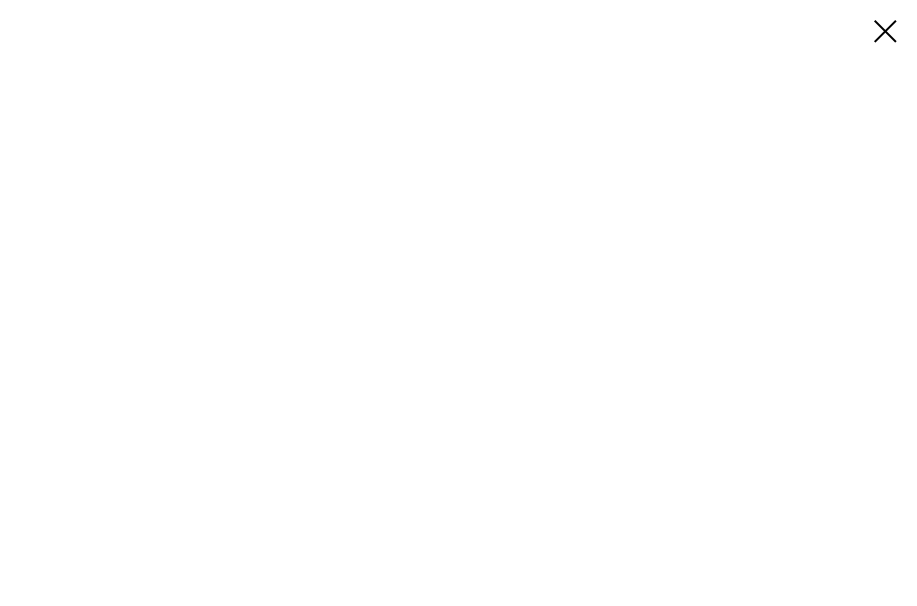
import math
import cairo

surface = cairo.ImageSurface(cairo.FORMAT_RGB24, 917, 606)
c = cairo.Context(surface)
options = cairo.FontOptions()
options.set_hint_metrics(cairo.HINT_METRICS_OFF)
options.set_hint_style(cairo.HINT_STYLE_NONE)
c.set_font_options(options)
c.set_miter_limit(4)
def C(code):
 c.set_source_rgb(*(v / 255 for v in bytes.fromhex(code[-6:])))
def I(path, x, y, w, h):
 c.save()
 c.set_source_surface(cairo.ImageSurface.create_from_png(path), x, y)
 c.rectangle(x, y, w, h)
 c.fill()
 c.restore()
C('ffffff')
c.paint()
I('1.png',874,20,23,23)
surface.write_to_png('o.png')
